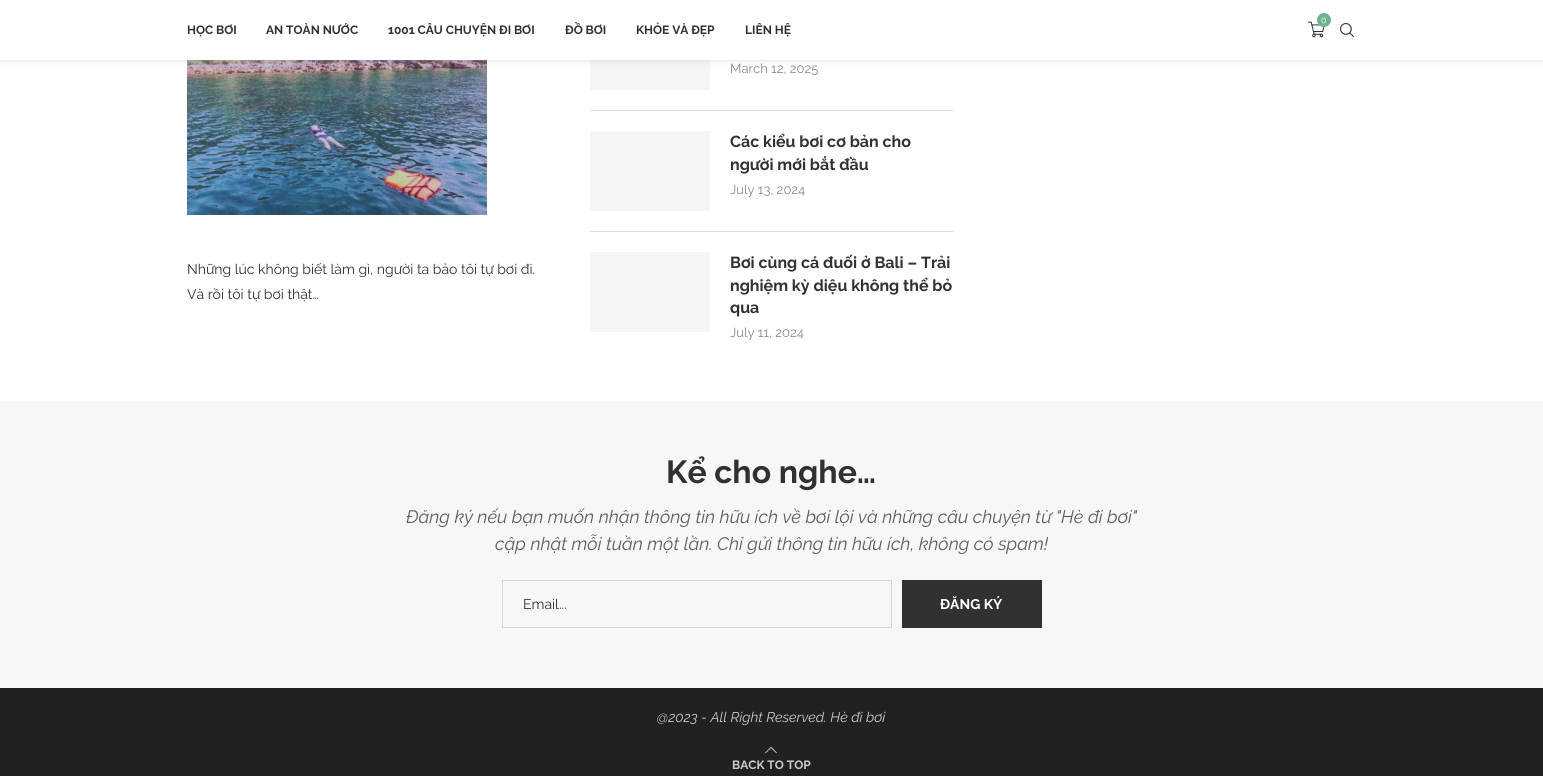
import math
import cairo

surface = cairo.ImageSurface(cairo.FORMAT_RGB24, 1543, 776)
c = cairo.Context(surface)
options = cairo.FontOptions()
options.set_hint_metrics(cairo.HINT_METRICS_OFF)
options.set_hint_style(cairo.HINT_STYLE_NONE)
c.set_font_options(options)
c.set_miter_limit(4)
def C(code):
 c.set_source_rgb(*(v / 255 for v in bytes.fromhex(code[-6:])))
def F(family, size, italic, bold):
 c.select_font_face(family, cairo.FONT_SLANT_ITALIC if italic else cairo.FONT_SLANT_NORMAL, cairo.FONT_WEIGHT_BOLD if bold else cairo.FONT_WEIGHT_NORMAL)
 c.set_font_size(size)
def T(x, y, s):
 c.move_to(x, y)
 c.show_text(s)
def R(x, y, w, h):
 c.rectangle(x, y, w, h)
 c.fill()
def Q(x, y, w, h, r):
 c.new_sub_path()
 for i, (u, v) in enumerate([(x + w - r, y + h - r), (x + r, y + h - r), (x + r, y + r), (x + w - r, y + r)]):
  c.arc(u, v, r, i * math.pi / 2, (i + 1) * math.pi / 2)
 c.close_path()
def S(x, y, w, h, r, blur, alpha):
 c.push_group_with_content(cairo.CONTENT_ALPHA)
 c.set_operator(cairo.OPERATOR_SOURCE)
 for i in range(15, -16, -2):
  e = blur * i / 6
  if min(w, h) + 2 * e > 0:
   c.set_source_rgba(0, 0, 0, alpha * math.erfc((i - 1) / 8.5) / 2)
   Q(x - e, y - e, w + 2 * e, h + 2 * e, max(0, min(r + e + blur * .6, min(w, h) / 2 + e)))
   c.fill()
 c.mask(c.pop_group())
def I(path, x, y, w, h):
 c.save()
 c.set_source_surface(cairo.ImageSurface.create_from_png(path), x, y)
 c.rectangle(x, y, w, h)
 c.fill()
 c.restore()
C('ffffff')
c.paint()
I('3.png',187,60,300,155)
C('f5f5f5')
R(590,60,120,30)
C('bebebe')
S(0,1,1543,60,0,2.5,.46)
C('ffffff')
R(0,0,1543,60)
F('Raleway',12,0,1)
C('313131')
T(187,34,'HỌC BƠI')
T(266,34,'AN TOÀN NƯỚC')
T(388,34,'1001 CÂU CHUYỆN ĐI BƠI')
T(565,34,'ĐỒ BƠI')
T(636,34,'KHỎE VÀ ĐẸP')
T(745,34,'LIÊN HỆ')
I('1.png',1308,21,17,17)
C('6eb48c')
c.arc(1324,20,7,0,2 * math.pi)
c.fill()
F('Raleway',9,0,0)
C('ffffff')
T(1321,23,'0')
I('2.png',1340,23,14,14)
F('Raleway',14,0,0)
C('313131')
T(187,274,'Những lúc không biết làm gì, người ta bảo tôi tự bơi đi.')
T(187,299,'Và rồi tôi tự bơi thật…')
C('dedede')
R(590,110,363,1)
F('Raleway',13,0,0)
C('888888')
T(730,73,'March 12, 2025')
C('dedede')
R(590,231,363,1)
C('f5f5f5')
R(590,131,120,80)
F('Raleway',16,0,1)
C('313131')
T(730,147,'Các kiểu bơi cơ bản cho')
T(730,170,'người mới bắt đầu')
F('Raleway',13,0,0)
C('888888')
T(730,194,'July 13, 2024')
C('f5f5f5')
R(590,252,120,80)
F('Raleway',16,0,1)
C('313131')
T(730,268,'Bơi cùng cá đuối ở Bali – Trải')
T(730,291,'nghiệm kỳ diệu không thể bỏ')
T(730,313,'qua')
F('Raleway',13,0,0)
C('888888')
T(730,337,'July 11, 2024')
C('f7f7f7')
R(0,401,1543,287)
F('Raleway',32,0,1)
C('313131')
T(666,483,'Kể cho nghe…')
F('Raleway',18,1,0)
C('5c5c5e')
T(406,523,'Đăng ký nếu bạn muốn nhận thông tin hữu ích về bơi lội và những câu chuyện từ "Hè đi bơi"')
T(495,550,'cập nhật mỗi tuần một lần. Chỉ gửi thông tin hữu ích, không có spam!')
c.rectangle(502.5,580.5,389,47)
C('d7d7da')
c.set_line_width(1)
c.stroke()
F('Raleway',14,0,0)
C('313131')
T(523,609,'Email...')
R(902,580,140,48)
F('Raleway',14,0,1)
C('ffffff')
T(940,609,'ĐĂNG KÝ')
C('212121')
R(0,688,1543,88)
F('Raleway',14,1,0)
C('cccccc')
T(657,722,'@2023 - All Right Reserved. Hè đi bơi')
I('4.png',765,746,12,8)
F('Raleway',12,0,1)
T(732,769,'BACK TO TOP')
surface.write_to_png('o.png')
